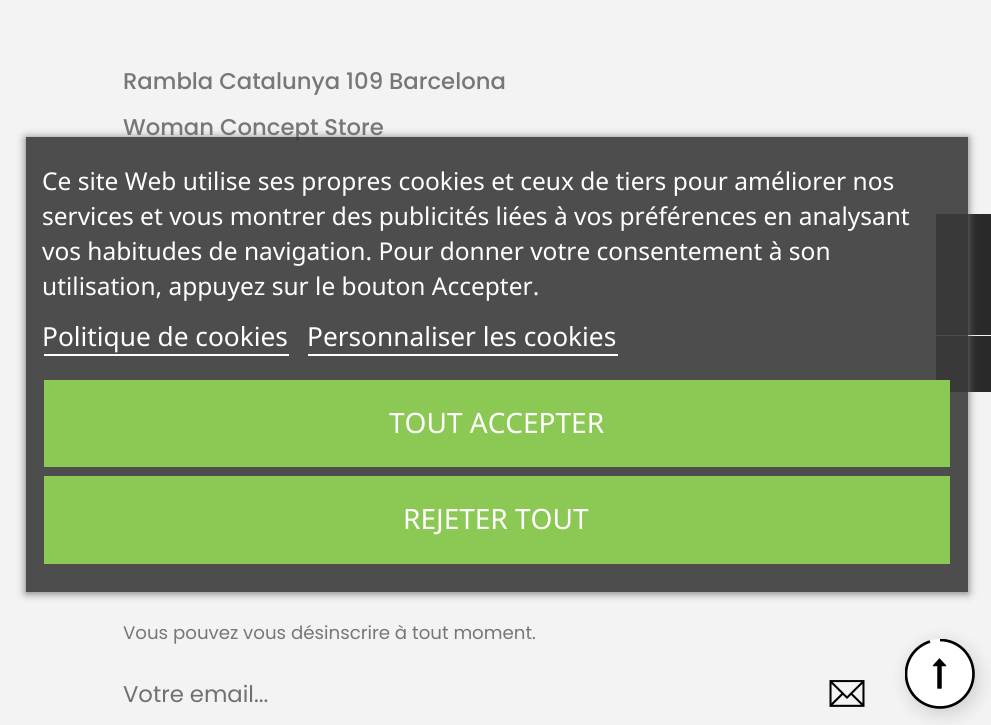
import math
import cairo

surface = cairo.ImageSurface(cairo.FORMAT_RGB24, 991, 725)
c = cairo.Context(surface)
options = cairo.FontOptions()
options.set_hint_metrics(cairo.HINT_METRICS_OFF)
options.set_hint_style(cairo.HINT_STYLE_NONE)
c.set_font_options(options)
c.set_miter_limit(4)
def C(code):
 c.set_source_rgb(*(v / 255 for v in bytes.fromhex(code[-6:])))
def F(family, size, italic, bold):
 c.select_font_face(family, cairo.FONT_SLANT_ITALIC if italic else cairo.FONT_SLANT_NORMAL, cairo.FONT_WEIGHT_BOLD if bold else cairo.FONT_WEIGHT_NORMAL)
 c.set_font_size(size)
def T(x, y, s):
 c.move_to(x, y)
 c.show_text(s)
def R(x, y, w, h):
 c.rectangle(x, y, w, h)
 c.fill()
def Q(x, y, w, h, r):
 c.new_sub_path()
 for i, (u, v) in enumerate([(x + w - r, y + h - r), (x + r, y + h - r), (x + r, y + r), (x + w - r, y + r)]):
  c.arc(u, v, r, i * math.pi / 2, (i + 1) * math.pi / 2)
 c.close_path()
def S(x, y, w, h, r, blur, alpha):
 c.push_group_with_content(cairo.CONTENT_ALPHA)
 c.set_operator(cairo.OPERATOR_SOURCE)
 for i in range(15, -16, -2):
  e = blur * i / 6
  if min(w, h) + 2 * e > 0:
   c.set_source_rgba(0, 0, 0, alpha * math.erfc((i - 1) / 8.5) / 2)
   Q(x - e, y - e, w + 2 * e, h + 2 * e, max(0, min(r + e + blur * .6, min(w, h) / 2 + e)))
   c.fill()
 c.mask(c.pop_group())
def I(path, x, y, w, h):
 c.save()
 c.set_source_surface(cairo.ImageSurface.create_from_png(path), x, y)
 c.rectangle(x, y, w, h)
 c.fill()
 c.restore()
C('f3f3f3')
c.paint()
F('Poppins Medium',22.75,0,0)
C('777777')
T(123,89,'Rambla Catalunya 109 Barcelona')
T(123,135,'Woman Concept Store')
F('Poppins',18.2,0,0)
T(123,639,'Vous pouvez vous désinscrire à tout moment.')
F('Poppins',22.75,0,0)
C('707070')
T(123,702,'Votre email...')
I('1.png',829,680,36,27)
C('292929')
R(936,336,55,56)
R(936,214,55,121)
c.save()
c.set_fill_rule(cairo.FILL_RULE_EVEN_ODD)
c.new_path()
c.move_to(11,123)
c.line_to(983,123)
c.line_to(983,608)
c.line_to(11,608)
c.close_path()
c.move_to(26,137)
c.line_to(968,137)
c.line_to(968,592)
c.line_to(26,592)
c.close_path()
c.clip()
C('707070')
S(26,138,942,455,0,4.5,1)
c.restore()
c.set_source_rgba(0.231,0.231,0.231,0.9)
R(26,137,942,455)
F('Noto Sans',24.5,0,0)
C('ffffff')
T(42,190,'Ce site Web utilise ses propres cookies et ceux de tiers pour améliorer nos')
T(42,225,'services et vous montrer des publicités liées à vos préférences en analysant')
T(42,260,'vos habitudes de navigation. Pour donner votre consentement à son')
T(42,295,'utilisation, appuyez sur le bouton Accepter.')
F('Noto Sans',26.25,0,0)
T(42,346,'Politique de cookies')
R(44,354,245,2)
T(307,346,'Personnaliser les cookies')
R(308,354,310,2)
C('8bc954')
R(44,380,906,87)
F('Noto Sans',28,0,0)
C('ffffff')
T(389,433,'TOUT ACCEPTER')
C('8bc954')
R(44,476,906,88)
C('ffffff')
T(403,529,'REJETER TOUT')
C('000000')
S(908,644,70,70,35,9,.15)
C('ffffff')
c.arc(940,674,35,0,2 * math.pi)
c.fill()
c.save()
c.rectangle(905,639,70,70)
c.clip()
c.new_path()
c.move_to(940,640)
c.curve_to(958.5,640,973.5,655,973.5,674)
c.curve_to(973.5,692.5,958.5,707.5,940,707.5)
c.curve_to(921,707.5,906,692.5,906,674)
c.curve_to(906,658.5,916,646,930,641.5)
C('000000')
c.set_line_width(2.7)
c.stroke()
c.restore()
I('2.png',932,658,15,31)
surface.write_to_png('o.png')
